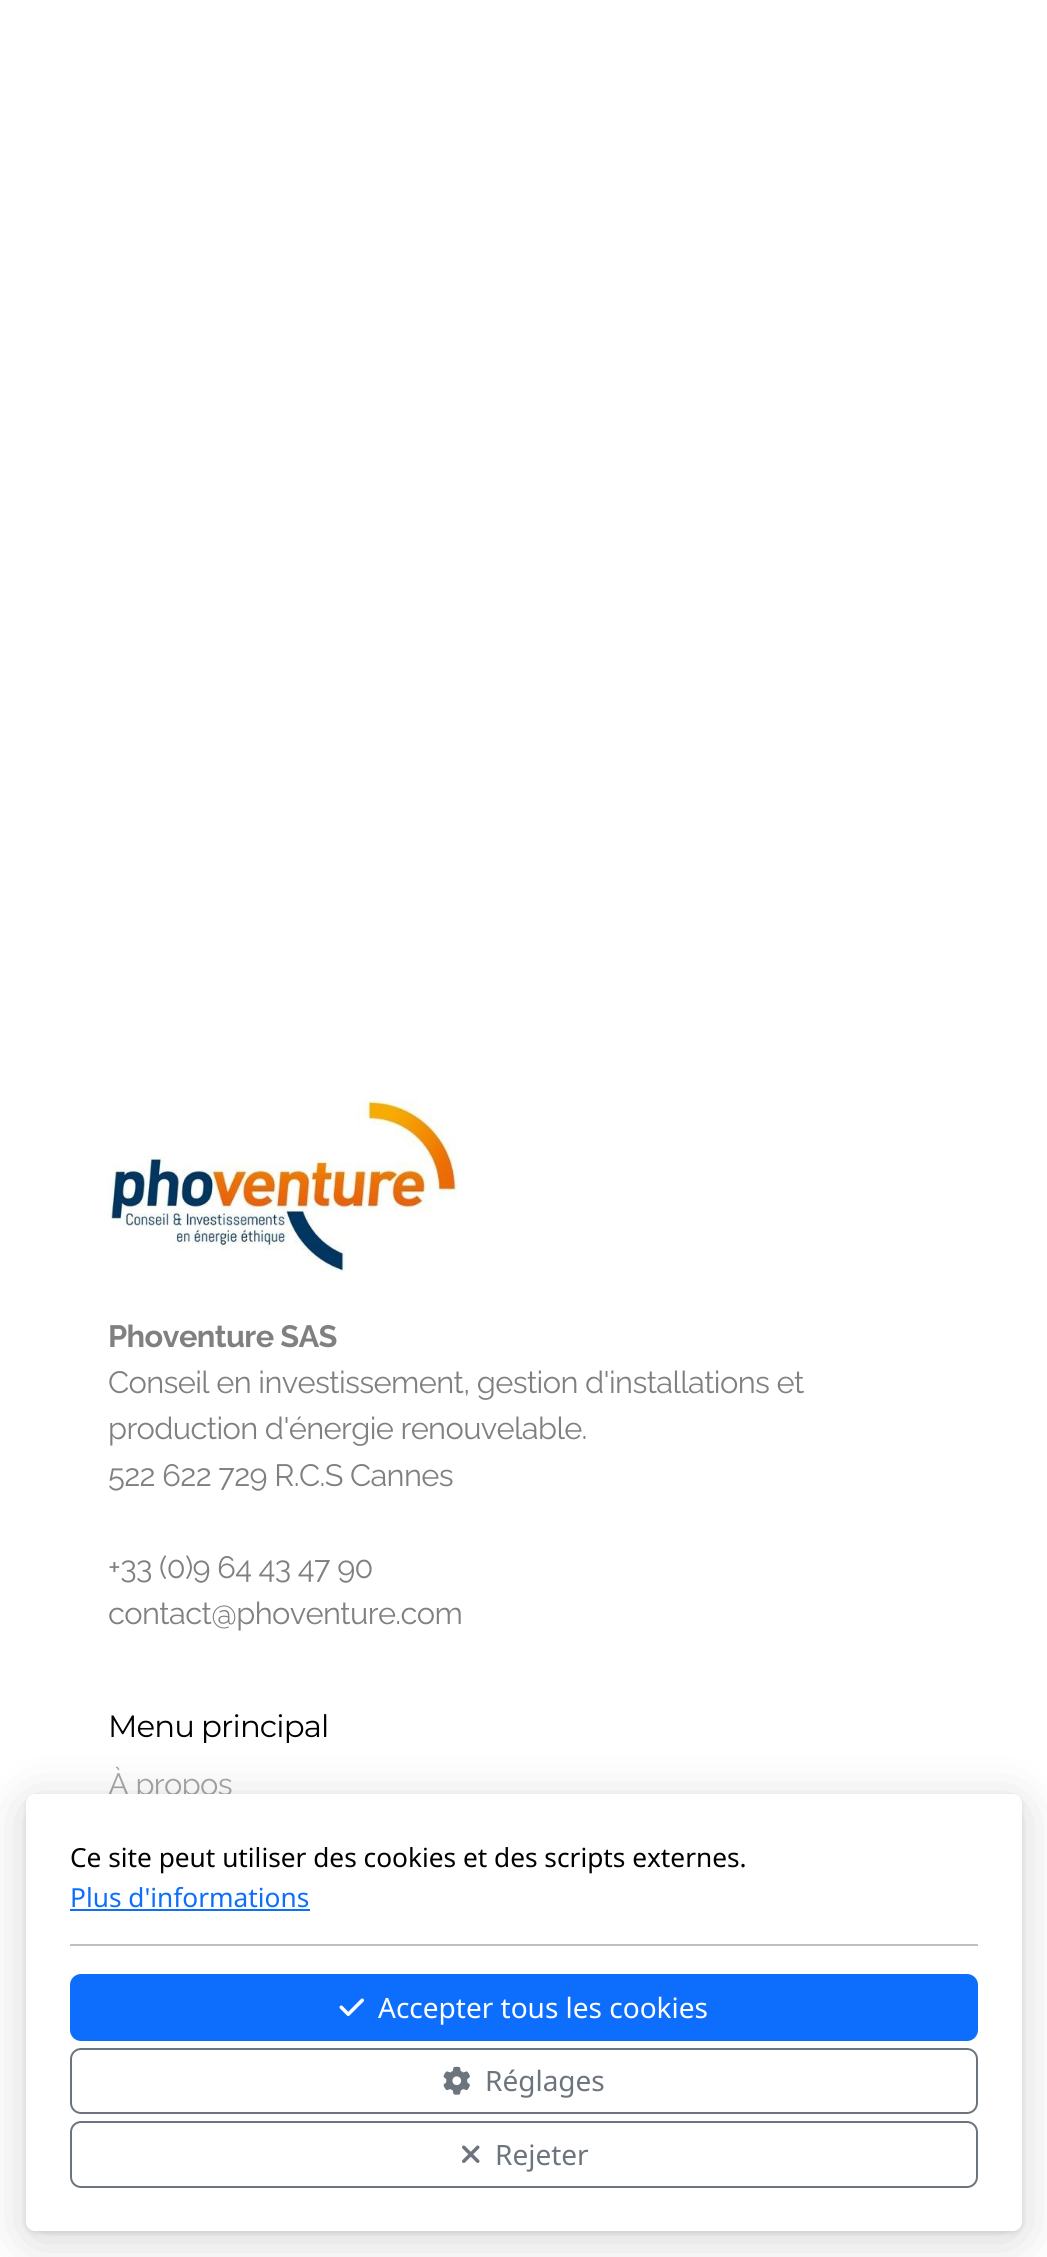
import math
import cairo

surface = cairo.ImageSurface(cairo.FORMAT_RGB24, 1047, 2257)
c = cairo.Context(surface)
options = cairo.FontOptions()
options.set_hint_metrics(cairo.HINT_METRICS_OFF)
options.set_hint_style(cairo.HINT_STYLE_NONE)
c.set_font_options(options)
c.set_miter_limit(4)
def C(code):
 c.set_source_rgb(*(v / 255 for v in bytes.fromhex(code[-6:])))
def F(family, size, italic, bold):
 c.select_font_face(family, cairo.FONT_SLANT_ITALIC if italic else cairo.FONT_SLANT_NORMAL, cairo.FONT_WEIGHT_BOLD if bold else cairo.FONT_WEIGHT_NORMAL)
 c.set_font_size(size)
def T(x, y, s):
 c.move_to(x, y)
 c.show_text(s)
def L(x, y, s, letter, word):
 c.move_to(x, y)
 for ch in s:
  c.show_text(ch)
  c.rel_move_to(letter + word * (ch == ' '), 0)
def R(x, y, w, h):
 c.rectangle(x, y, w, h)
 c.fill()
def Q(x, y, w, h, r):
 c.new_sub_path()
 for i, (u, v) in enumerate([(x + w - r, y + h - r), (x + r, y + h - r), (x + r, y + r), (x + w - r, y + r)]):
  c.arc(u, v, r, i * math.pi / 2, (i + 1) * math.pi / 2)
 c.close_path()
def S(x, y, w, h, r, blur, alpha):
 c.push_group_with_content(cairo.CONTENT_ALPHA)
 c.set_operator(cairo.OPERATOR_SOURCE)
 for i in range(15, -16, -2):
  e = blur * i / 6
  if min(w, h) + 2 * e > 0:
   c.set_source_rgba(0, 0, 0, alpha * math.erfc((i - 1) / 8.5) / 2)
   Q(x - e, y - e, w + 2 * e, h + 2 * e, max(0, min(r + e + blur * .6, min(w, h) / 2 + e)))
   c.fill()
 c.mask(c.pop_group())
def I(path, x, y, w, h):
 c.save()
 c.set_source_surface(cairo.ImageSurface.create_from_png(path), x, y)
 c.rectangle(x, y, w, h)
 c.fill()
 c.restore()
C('ffffff')
c.paint()
I('1.png',108,1100,349,172)
F('Raleway Thin',30.8,0,0)
C('808080')
L(108,1347,'Phoventure SAS',-.62,0)
F('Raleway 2 Thin',30.8,0,0)
L(108,1393,'Conseil en investissement, gestion d\'installations et',-.62,0)
L(108,1439,'production d\'énergie renouvelable.',-.62,0)
L(108,1486,'522 622 729 R.C.S Cannes',-.62,0)
L(108,1578,'+33 (0)9 64 43 47 90',-.62,0)
L(108,1624,'contact@phoventure.com',-.62,0)
F('Montserrat Thin',30.8,0,0)
C('000000')
L(108,1737,'Menu principal',-.9,0)
F('Raleway 2 Thin',30.8,0,0)
C('a6a6a6')
L(108,1795,'À propos',-.62,0)
C('000000')
S(26,1803,996,437,9,26,.16)
S(26,1796,996,437,9,2.5,.1)
C('ffffff')
Q(26,1794,996,437,9)
c.fill()
F('Noto Sans',26.25,0,0)
C('000000')
T(70,1867,'Ce site peut utiliser des cookies et des scripts externes.')
C('0d6efd')
T(70,1907,'Plus d\'informations')
R(70,1909,240,2)
C('bfbfbf')
R(70,1944,908,2)
C('0d6efd')
Q(71,1975,906,65,10)
c.fill_preserve()
c.stroke()
I('2.png',339,1998,25,18)
F('Noto Sans',28,0,0)
C('ffffff')
T(378,2018,'Accepter tous les cookies')
Q(71,2049,906,64,10)
C('6c757d')
c.stroke()
I('3.png',443,2066,27,29)
T(485,2091,'Réglages')
Q(71,2122,906,65,10)
c.stroke()
I('4.png',462,2145,18,18)
T(495,2165,'Rejeter')
surface.write_to_png('o.png')
